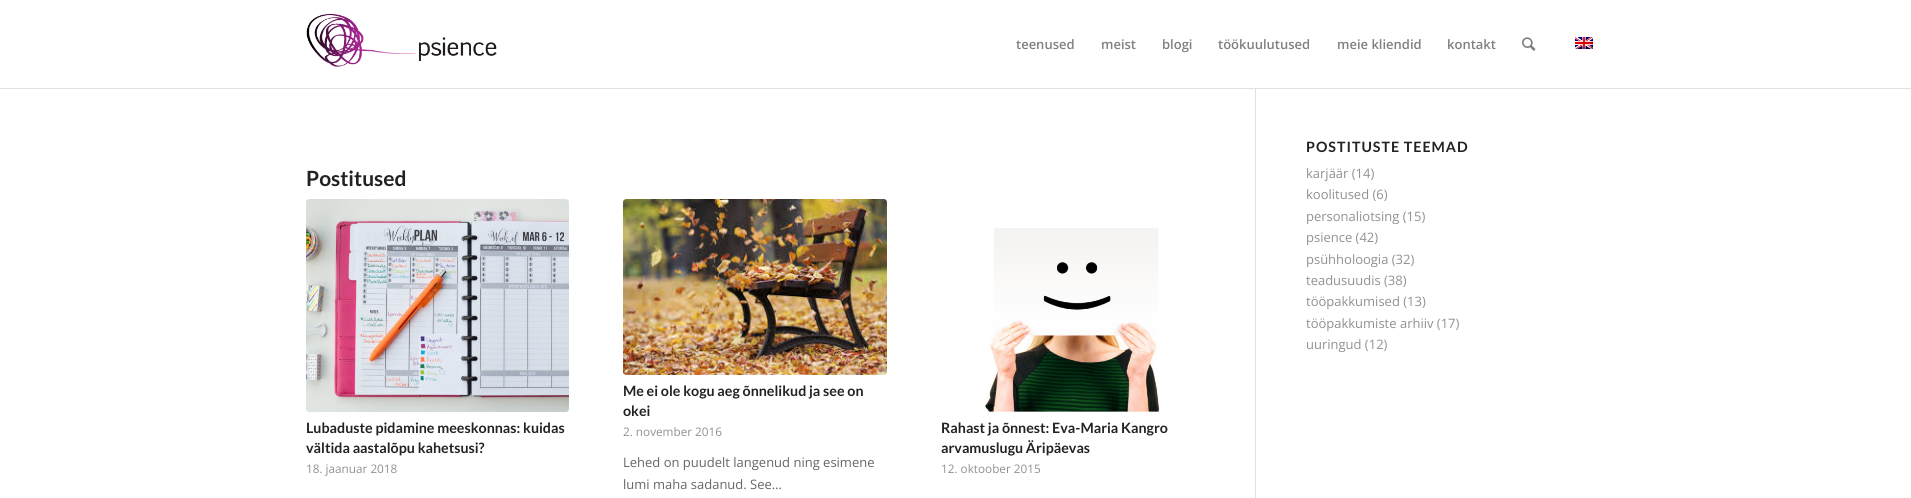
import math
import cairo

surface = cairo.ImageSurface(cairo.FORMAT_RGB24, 1911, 498)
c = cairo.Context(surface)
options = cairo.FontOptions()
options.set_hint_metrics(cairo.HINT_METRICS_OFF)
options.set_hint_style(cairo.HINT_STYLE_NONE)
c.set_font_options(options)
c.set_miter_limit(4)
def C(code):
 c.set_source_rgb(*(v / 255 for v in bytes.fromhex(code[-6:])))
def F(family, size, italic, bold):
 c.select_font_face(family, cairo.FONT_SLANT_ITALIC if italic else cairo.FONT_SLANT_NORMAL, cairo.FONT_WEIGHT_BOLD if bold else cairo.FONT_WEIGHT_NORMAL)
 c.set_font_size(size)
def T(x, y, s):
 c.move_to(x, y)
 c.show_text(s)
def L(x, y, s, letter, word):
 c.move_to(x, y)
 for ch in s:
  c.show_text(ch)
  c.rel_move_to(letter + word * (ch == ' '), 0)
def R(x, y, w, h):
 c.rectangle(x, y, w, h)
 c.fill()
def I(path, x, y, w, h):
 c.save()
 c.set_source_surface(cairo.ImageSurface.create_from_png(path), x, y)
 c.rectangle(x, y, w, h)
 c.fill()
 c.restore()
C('ffffff')
c.paint()
C('e1e1e1')
R(0,88,1911,1)
I('1.png',306,13,191,54)
F('Open Sans SemiBold',13,0,0)
C('808080')
T(1016,49,'teenused')
T(1101,49,'meist')
T(1162,49,'blogi')
T(1218,49,'töökuulutused')
T(1337,49,'meie kliendid')
T(1447,49,'kontakt')
I('2.png',1522,37,14,14)
I('3.png',1575,37,18,12)
C('e1e1e1')
R(1255,89,1,409)
F('Lato',21,0,1)
C('222222')
T(306,186,'Postitused')
I('4.png',306,199,263,213)
F('Lato',14.25,0,1)
T(306,433,'Lubaduste pidamine meeskonnas: kuidas')
T(306,453,'vältida aastalõpu kahetsusi?')
F('Open Sans',11.75,0,0)
C('919191')
T(306,473,'18. jaanuar 2018')
I('5.png',623,199,264,176)
F('Lato',14.25,0,1)
C('222222')
T(623,396,'Me ei ole kogu aeg õnnelikud ja see on')
T(623,416,'okei')
F('Open Sans',11.75,0,0)
C('919191')
T(623,436,'2. november 2016')
F('Open Sans',13,0,0)
C('666666')
T(623,467,'Lehed on puudelt langenud ning esimene')
T(623,489,'lumi maha sadanud. See…')
I('6.png',984,228,176,184)
F('Lato',14.25,0,1)
C('222222')
T(941,433,'Rahast ja õnnest: Eva-Maria Kangro')
T(941,453,'arvamuslugu Äripäevas')
F('Open Sans',11.75,0,0)
C('919191')
T(941,473,'12. oktoober 2015')
F('Lato',14.25,0,1)
C('222222')
L(1306,152,'POSTITUSTE TEEMAD',1,0)
F('Open Sans',13,0,0)
C('919191')
T(1306,178,'karjäär (14)')
T(1306,199,'koolitused (6)')
T(1306,221,'personaliotsing (15)')
T(1306,242,'psience (42)')
T(1306,264,'psühholoogia (32)')
T(1306,285,'teadusuudis (38)')
T(1306,306,'tööpakkumised (13)')
T(1306,328,'tööpakkumiste arhiiv (17)')
T(1306,349,'uuringud (12)')
surface.write_to_png('o.png')
